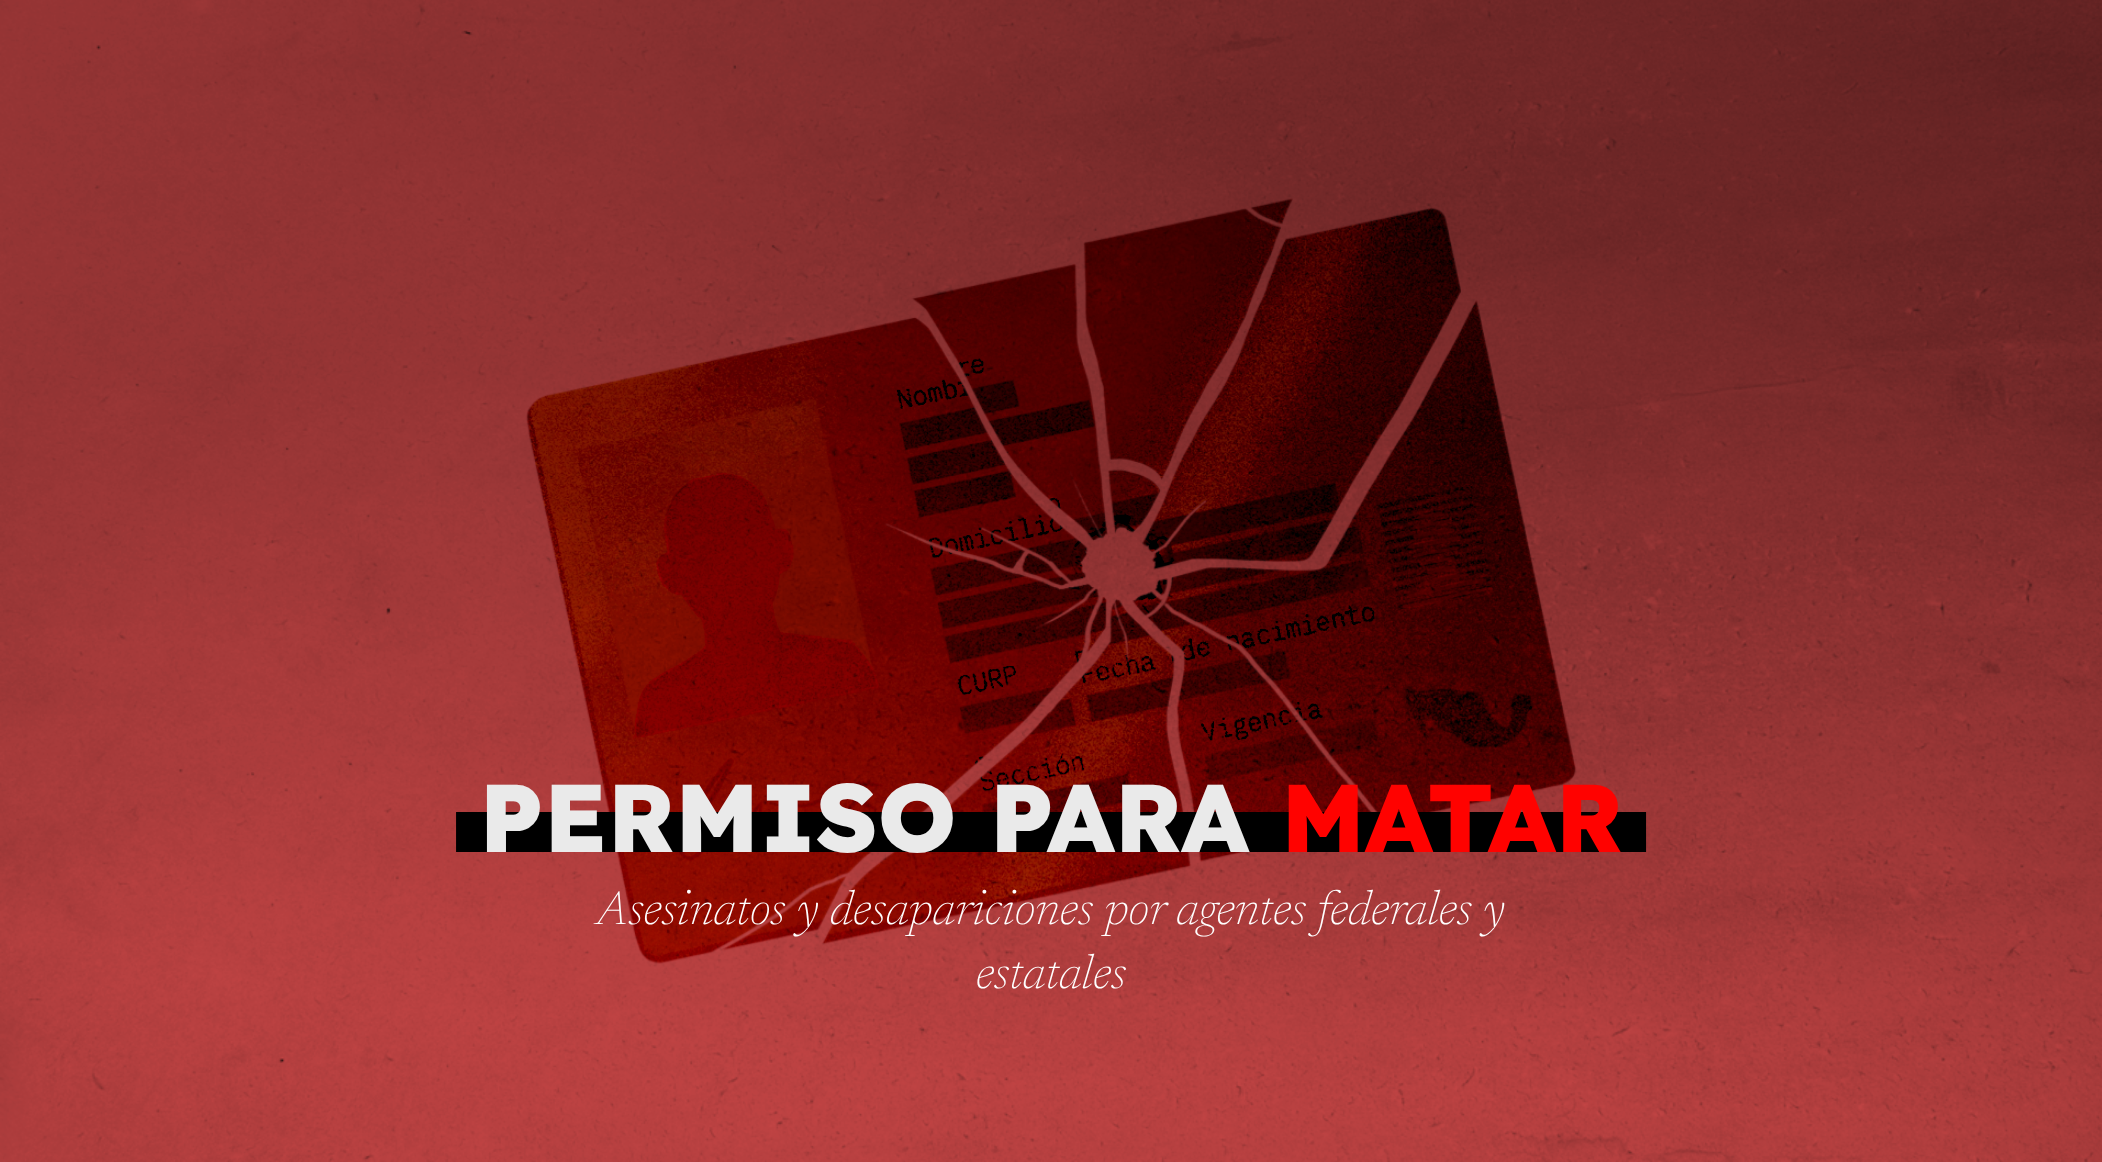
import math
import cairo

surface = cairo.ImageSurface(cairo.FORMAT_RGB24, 2102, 1162)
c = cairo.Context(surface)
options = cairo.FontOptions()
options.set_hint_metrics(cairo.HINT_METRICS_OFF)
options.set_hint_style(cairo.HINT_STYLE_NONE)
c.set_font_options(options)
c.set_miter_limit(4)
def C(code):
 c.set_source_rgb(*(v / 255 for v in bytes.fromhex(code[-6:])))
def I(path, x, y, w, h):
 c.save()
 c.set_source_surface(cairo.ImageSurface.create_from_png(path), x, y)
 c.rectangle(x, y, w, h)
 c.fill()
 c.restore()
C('ffffff')
c.paint()
I('1.png',0,0,2102,1162)
surface.write_to_png('o.png')
